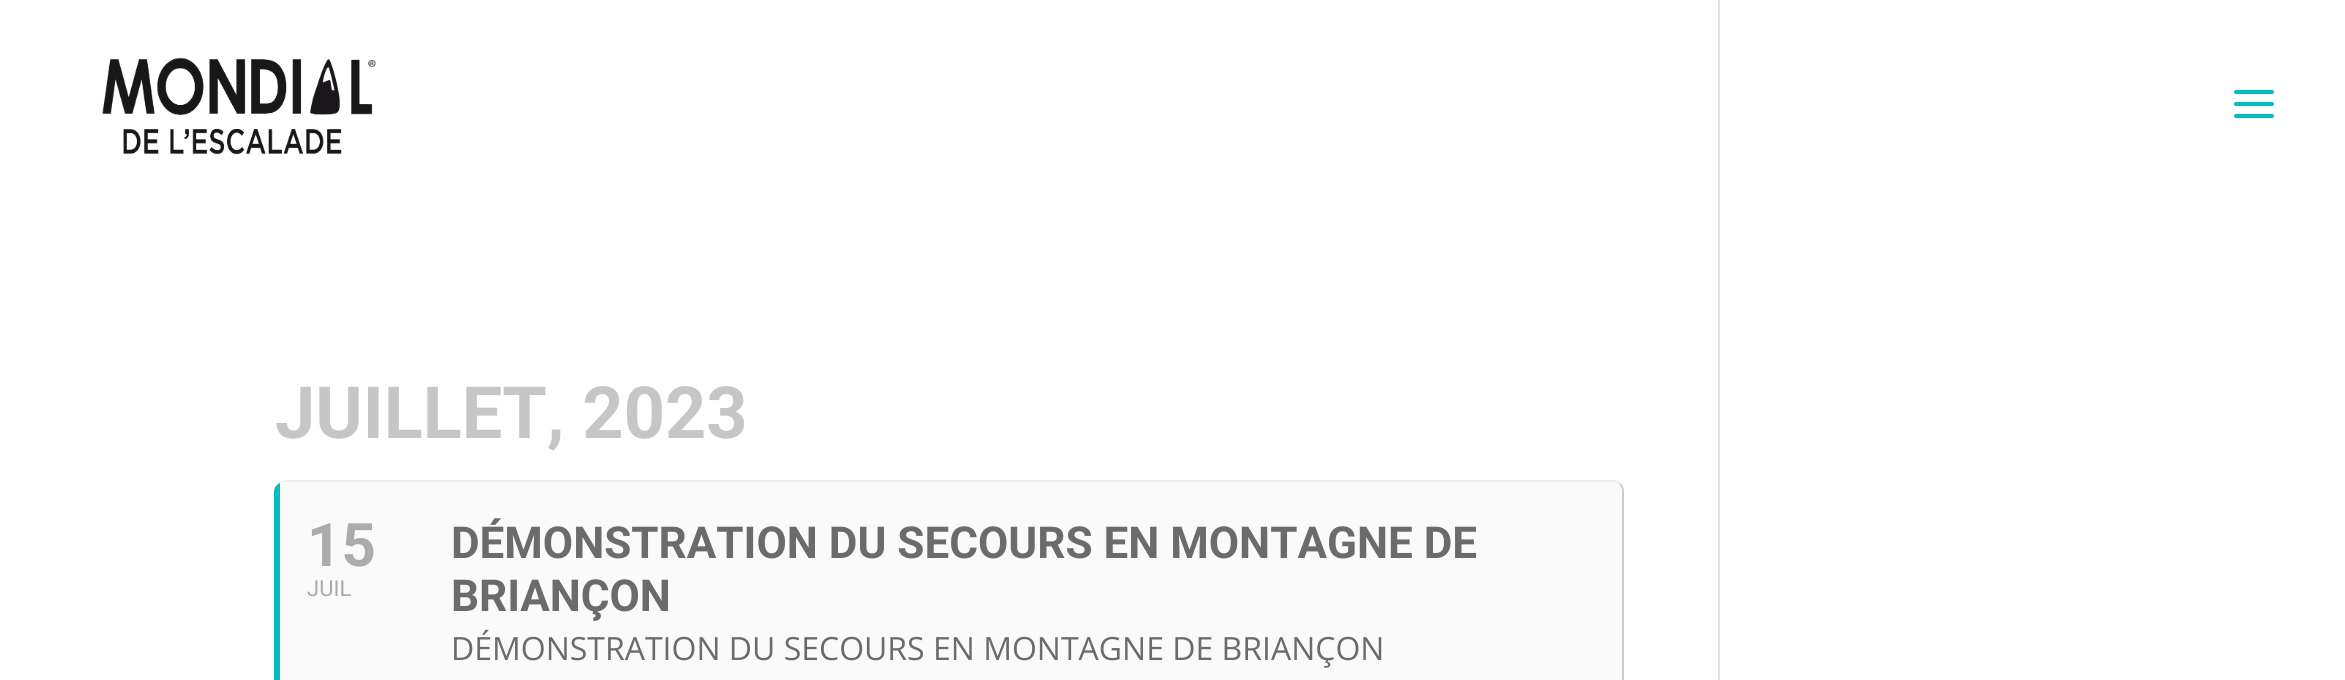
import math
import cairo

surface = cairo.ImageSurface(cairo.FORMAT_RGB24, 2345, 680)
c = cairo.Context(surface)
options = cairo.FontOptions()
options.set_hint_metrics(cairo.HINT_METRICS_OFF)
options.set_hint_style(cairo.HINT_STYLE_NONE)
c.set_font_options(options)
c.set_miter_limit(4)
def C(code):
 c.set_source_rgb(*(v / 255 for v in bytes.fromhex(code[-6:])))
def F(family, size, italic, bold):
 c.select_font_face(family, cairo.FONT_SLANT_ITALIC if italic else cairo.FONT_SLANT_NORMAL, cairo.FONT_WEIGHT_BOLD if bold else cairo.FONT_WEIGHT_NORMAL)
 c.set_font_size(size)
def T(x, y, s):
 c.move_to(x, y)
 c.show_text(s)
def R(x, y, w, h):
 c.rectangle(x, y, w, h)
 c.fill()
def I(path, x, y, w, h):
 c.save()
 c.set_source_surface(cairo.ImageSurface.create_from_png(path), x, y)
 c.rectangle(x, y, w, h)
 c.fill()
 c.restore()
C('ffffff')
c.paint()
I('1.png',102,57,274,98)
I('2.png',2234,90,40,28)
F('Roboto',72,0,1)
C('c6c6c6')
T(275,438,'JUILLET, 2023')
C('efeeee')
c.new_path()
c.move_to(286,480)
c.line_to(1612,480)
c.curve_to(1616,480,1618,481,1621,483)
c.line_to(1619,485)
c.curve_to(1618,483,1615,482,1612,482)
c.line_to(286,482)
c.curve_to(279,482,274,486,274,492)
c.curve_to(274,485,279,480,286,480)
c.close_path()
c.fill()
C('cdcdcd')
c.new_path()
c.move_to(1621,483)
c.line_to(1619,485)
c.curve_to(1621,486,1622,489,1622,492)
c.line_to(1622,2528)
c.curve_to(1622,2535,1618,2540,1612,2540)
c.curve_to(1619,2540,1624,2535,1624,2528)
c.line_to(1624,492)
c.curve_to(1624,488,1623,486,1621,483)
c.close_path()
c.fill()
C('fafafa')
c.new_path()
c.move_to(286,482)
c.curve_to(279,482,274,486,274,492)
c.line_to(274,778)
c.line_to(1622,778)
c.line_to(1622,492)
c.curve_to(1622,486,1618,482,1612,482)
c.close_path()
c.fill()
C('00bdc4')
c.new_path()
c.move_to(280,483)
c.curve_to(276,485,274,488,274,492)
c.line_to(274,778)
c.line_to(280,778)
c.close_path()
c.fill()
F('Roboto',60,0,1)
C('ababab')
T(307,566,'15')
F('Roboto',22,0,0)
T(307,596,'JUIL')
F('Roboto',44,0,1)
C('6b6b6b')
T(451,558,'DÉMONSTRATION DU SECOURS EN MONTAGNE DE')
T(451,611,'BRIANÇON')
F('Open Sans',32,0,0)
T(451,660,'DÉMONSTRATION DU SECOURS EN MONTAGNE DE BRIANÇON')
C('e2e2e2')
R(1718,0,2,680)
surface.write_to_png('o.png')
